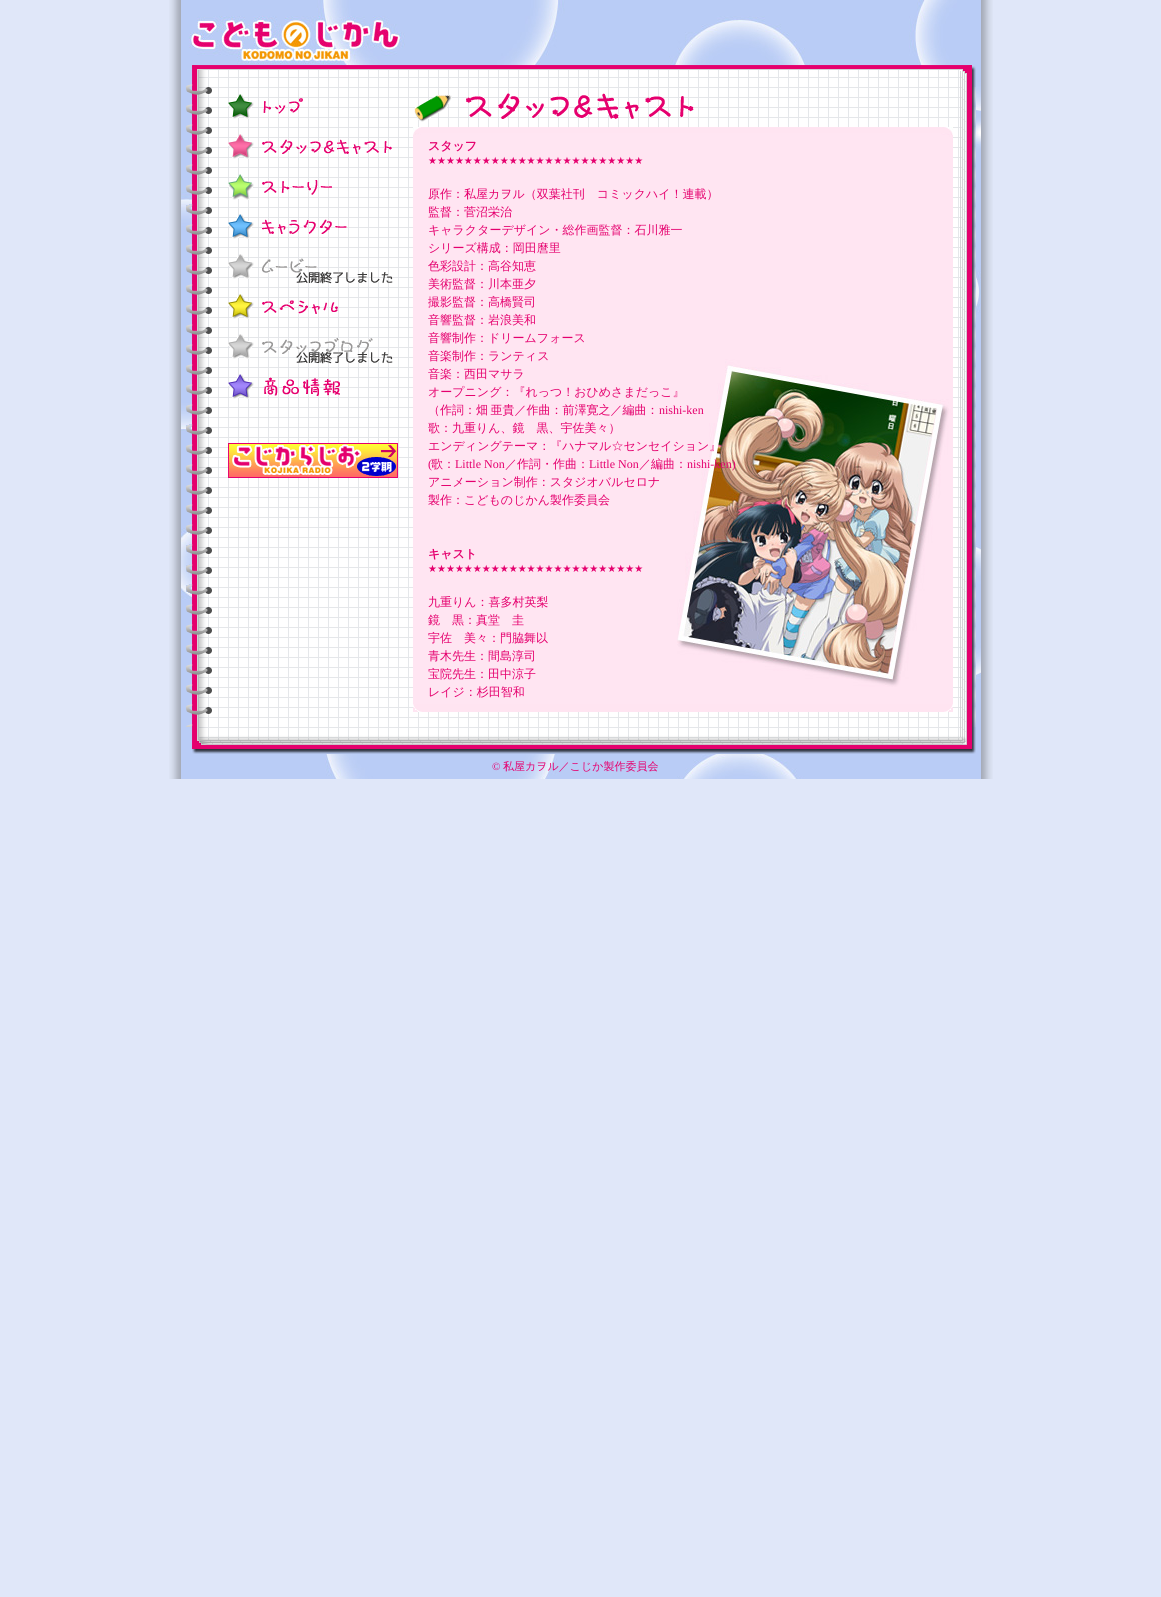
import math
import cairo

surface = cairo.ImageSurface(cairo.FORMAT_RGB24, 1161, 1597)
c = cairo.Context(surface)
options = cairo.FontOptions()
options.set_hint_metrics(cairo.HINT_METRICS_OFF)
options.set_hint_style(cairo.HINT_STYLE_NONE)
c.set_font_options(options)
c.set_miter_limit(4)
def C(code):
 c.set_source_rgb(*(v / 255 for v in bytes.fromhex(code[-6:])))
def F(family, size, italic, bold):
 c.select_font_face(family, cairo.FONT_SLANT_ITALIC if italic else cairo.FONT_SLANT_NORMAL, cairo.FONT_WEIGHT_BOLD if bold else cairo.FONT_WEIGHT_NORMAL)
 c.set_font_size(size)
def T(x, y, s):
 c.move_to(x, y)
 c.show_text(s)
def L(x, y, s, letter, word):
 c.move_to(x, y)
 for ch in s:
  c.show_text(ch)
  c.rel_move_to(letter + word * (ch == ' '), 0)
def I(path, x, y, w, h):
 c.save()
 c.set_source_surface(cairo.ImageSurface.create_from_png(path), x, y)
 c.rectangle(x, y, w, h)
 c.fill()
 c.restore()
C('e0e7f9')
c.paint()
I('1.png',169,0,12,779)
I('2.png',181,0,800,779)
I('3.png',186,65,790,22)
I('4.png',186,87,790,640)
I('5.png',228,94,75,25)
I('6.png',228,134,164,25)
I('7.png',228,174,104,26)
I('8.png',228,214,119,25)
I('9.png',228,254,165,30)
I('10.png',228,294,110,25)
I('11.png',228,334,165,30)
I('12.png',228,374,112,25)
I('13.png',228,443,170,35)
I('14.png',414,93,280,29)
I('15.png',413,127,540,585)
I('16.png',414,128,535,5)
F('WenQuanYi Zen Hei',12,0,1)
C('e5006e')
T(428,150,'スタッフ')
F('DejaVu Sans',10,0,0)
T(428,164,'★★★★★★★★★★★★★★★★★★★★★★★★')
F('WenQuanYi Zen Hei Medium',12,0,0)
T(428,198,'原作：私屋カヲル（双葉社刊　コミックハイ！連載）')
T(428,216,'監督：菅沼栄治')
T(428,234,'キャラクターデザイン・総作画監督：石川雅一')
T(428,252,'シリーズ構成：岡田麿里')
T(428,270,'色彩設計：高谷知恵')
T(428,288,'美術監督：川本亜夕')
T(428,306,'撮影監督：高橋賢司')
T(428,324,'音響監督：岩浪美和')
T(428,342,'音響制作：ドリームフォース')
T(428,360,'音楽制作：ランティス')
T(428,378,'音楽：西田マサラ')
T(428,396,'オープニング：『れっつ！おひめさまだっこ』')
L(428,414,'（作詞：畑 亜貴／作曲：前澤寛之／編曲：',0,-1)
F('Liberation Serif',12,0,0)
T(659,414,'nishi-ken')
F('WenQuanYi Zen Hei Medium',12,0,0)
T(428,432,'歌：九重りん、鏡　黒、宇佐美々）')
T(428,450,'エンディングテーマ：『ハナマル☆センセイション』')
F('Liberation Serif',12,0,0)
T(428,468,'(')
F('WenQuanYi Zen Hei Medium',12,0,0)
T(431,468,'歌：')
F('Liberation Serif',12,0,0)
T(455,468,'Little Non')
F('WenQuanYi Zen Hei Medium',12,0,0)
T(505,468,'／作詞・作曲：')
F('Liberation Serif',12,0,0)
T(589,468,'Little Non')
F('WenQuanYi Zen Hei Medium',12,0,0)
T(639,468,'／編曲：')
F('Liberation Serif',12,0,0)
T(687,468,'nishi-ken)')
F('WenQuanYi Zen Hei Medium',12,0,0)
T(428,486,'アニメーション制作：スタジオバルセロナ')
T(428,504,'製作：こどものじかん製作委員会')
F('WenQuanYi Zen Hei',12,0,1)
T(428,558,'キャスト')
F('DejaVu Sans',10,0,0)
T(428,572,'★★★★★★★★★★★★★★★★★★★★★★★★')
F('WenQuanYi Zen Hei Medium',12,0,0)
T(428,606,'九重りん：喜多村英梨')
T(428,624,'鏡　黒：真堂　圭')
T(428,642,'宇佐　美々：門脇舞以')
T(428,660,'青木先生：間島淳司')
T(428,678,'宝院先生：田中涼子')
T(428,696,'レイジ：杉田智和')
I('17.png',413,704,540,8)
I('18.png',192,727,784,27)
F('Liberation Serif',11,0,0)
T(492,770,'©')
F('WenQuanYi Zen Hei Medium',11,0,0)
T(503,770,'私屋カヲル／こじか製作委員会')
I('19.png',981,0,12,779)
surface.write_to_png('o.png')
